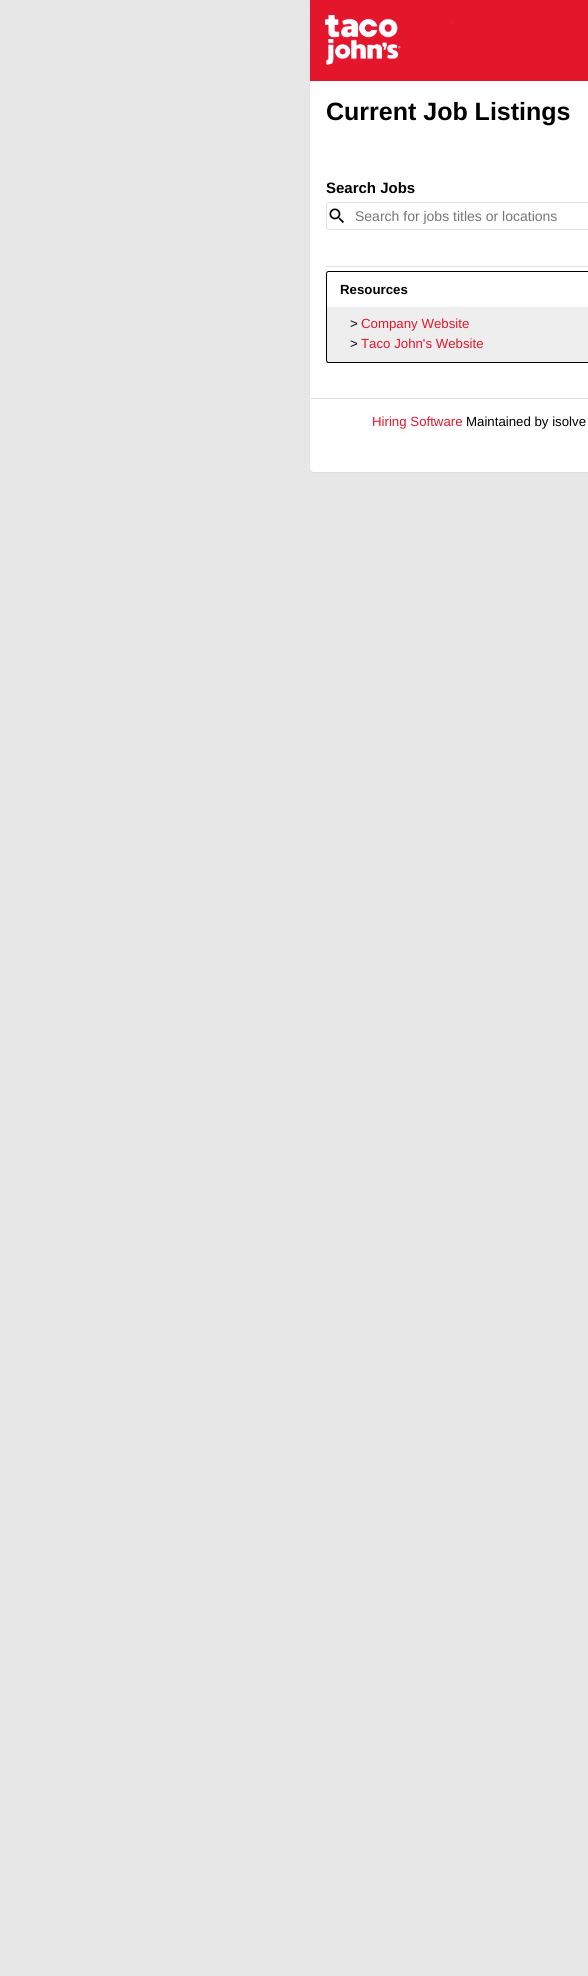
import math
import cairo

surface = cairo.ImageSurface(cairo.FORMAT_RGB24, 588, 1976)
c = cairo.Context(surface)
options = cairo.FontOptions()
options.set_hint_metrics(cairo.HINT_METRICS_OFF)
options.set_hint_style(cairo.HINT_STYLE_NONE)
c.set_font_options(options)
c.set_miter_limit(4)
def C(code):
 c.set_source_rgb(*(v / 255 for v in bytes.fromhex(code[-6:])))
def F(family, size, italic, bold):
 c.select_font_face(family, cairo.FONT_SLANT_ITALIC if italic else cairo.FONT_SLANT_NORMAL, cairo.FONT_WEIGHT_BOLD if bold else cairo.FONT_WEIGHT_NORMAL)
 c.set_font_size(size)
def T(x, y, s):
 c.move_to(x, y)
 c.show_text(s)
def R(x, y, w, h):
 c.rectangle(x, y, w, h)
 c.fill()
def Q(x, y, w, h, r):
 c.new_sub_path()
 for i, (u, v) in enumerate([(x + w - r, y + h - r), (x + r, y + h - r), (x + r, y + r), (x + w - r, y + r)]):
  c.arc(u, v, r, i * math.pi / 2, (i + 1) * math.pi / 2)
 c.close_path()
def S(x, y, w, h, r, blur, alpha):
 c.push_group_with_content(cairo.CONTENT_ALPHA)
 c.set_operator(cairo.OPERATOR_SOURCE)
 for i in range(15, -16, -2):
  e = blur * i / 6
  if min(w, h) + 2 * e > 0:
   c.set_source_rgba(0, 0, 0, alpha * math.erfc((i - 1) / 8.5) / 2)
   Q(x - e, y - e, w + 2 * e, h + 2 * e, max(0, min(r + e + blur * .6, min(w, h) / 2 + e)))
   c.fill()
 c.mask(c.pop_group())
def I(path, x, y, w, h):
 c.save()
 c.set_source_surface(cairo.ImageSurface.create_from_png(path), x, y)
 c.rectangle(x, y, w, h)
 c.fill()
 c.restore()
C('e7e7e7')
c.paint()
C('000000')
S(310,81,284,392,4,.5,.05)
C('ffffff')
Q(310.5,80.5,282,391,3.5)
c.fill_preserve()
c.set_line_width(1)
c.stroke()
I('1.png',310,0,278,81)
F('Liberation Sans',25,0,1)
C('000000')
T(326,120,'Current Job Listings')
C('e0e0e0')
R(326,266,262,1)
F('Liberation Sans',15,0,1)
C('000000')
T(326,193,'Search Jobs')
Q(326.5,202.5,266,27,3.5)
C('e0e0e0')
c.stroke()
I('2.png',329,208,15,15)
F('Liberation Sans',14,0,0)
C('757575')
T(355,221,'Search for jobs titles or locations')
c.new_path()
c.move_to(328.5,271.5)
c.line_to(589.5,271.5)
c.curve_to(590.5,271.5,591.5,272.5,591.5,273.5)
c.line_to(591.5,307.5)
c.line_to(326.5,307.5)
c.line_to(326.5,273.5)
c.curve_to(326.5,272.5,327.5,271.5,328.5,271.5)
c.close_path()
C('000000')
c.stroke()
F('Liberation Sans',13.25,0,1)
T(340,294,'Resources')
C('eeeeee')
c.new_path()
c.move_to(327,307)
c.line_to(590,307)
c.line_to(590,360.5)
c.curve_to(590,361.5,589.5,362,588.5,362)
c.line_to(328.5,362)
c.curve_to(327.5,362,327,361.5,327,360.5)
c.close_path()
c.fill()
C('000000')
c.set_fill_rule(cairo.FILL_RULE_EVEN_ODD)
c.new_path()
c.move_to(326,307)
c.line_to(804,307)
c.line_to(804,360)
c.curve_to(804,362,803,363,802,363)
c.line_to(328,363)
c.curve_to(327,363,326,362,326,360)
c.close_path()
c.move_to(327,307)
c.line_to(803,307)
c.line_to(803,360)
c.curve_to(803,361,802,362,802,362)
c.line_to(328,362)
c.curve_to(328,362,327,361,327,360)
c.close_path()
c.fill()
F('Liberation Sans',13.25,0,0)
T(350,328,'>')
C('e3162c')
T(361,328,'Company Website')
C('000000')
T(350,348,'>')
C('e3162c')
T(361,348,'Taco John\'s Website')
C('dddddd')
R(311,398,277,1)
C('e3162c')
T(372,426,'Hiring Software')
C('000000')
T(466,426,'Maintained by isolve')
surface.write_to_png('o.png')
